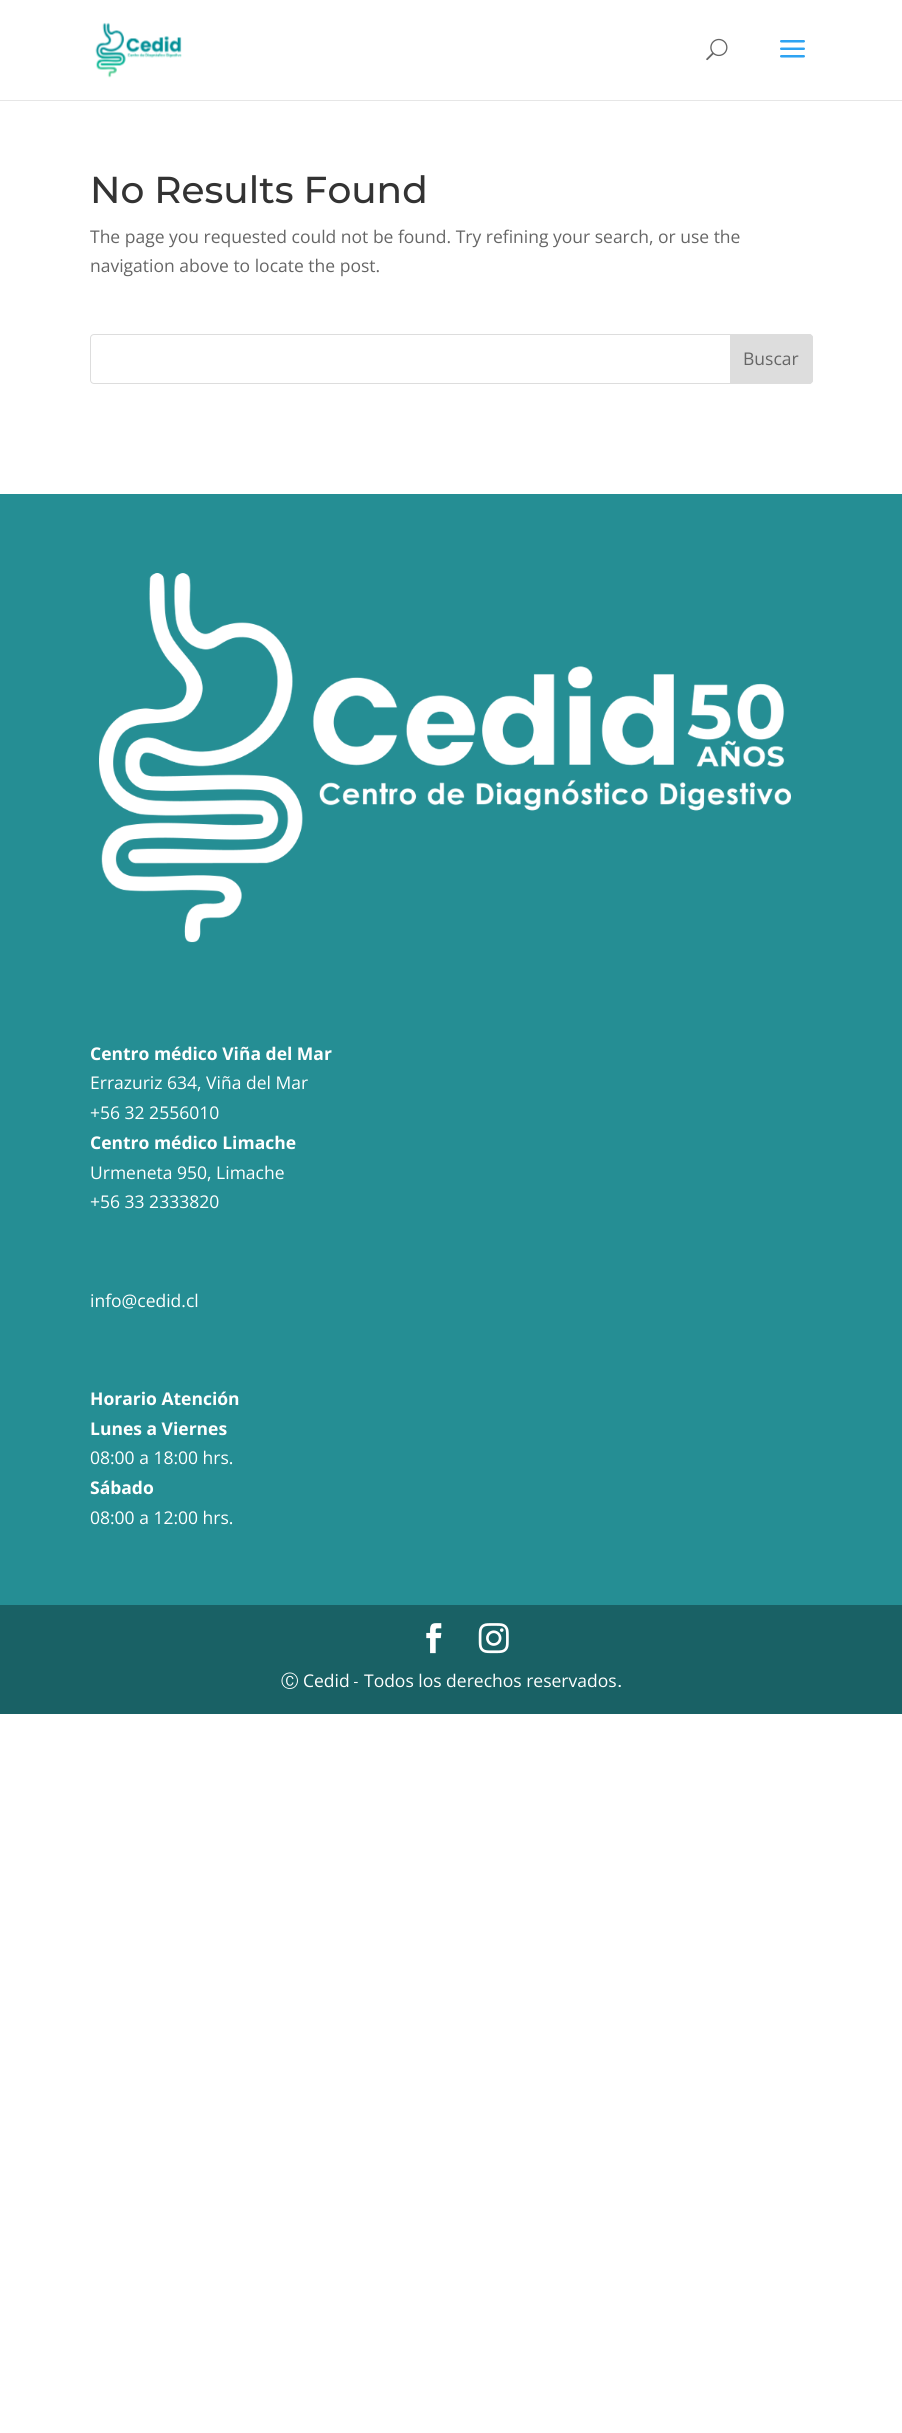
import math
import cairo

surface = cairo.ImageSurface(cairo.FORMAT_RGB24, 902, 2433)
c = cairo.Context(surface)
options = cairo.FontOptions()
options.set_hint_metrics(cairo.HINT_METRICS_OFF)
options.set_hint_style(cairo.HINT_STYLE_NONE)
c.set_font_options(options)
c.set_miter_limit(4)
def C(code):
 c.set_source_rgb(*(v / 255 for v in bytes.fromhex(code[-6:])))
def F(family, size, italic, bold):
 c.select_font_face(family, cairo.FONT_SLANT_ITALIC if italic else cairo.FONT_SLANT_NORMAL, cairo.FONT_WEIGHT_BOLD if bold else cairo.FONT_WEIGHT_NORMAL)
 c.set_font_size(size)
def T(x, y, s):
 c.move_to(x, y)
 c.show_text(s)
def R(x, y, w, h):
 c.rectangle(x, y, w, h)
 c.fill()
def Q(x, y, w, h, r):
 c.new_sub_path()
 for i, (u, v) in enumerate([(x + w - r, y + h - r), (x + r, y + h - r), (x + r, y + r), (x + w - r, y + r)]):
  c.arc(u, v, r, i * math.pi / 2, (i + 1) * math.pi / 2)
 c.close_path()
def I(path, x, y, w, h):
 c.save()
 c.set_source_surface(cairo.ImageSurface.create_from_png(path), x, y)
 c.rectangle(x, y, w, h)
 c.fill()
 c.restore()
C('ffffff')
c.paint()
C('e6e6e6')
c.new_path()
c.move_to(0,100)
c.line_to(0,101)
c.line_to(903,101)
c.line_to(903,1)
c.line_to(902,1)
c.line_to(902,100)
c.close_path()
c.fill()
I('1.png',95,22,87,56)
I('2.png',706,38,22,23)
I('3.png',780,40,25,18)
F('Montserrat Medium',37.5,0,0)
C('333333')
T(90,203,'No Results Found')
F('Open Sans',17.5,0,0)
C('666666')
T(90,243,'The page you requested could not be found. Try refining your search, or use the')
T(90,272,'navigation above to locate the post.')
Q(90.5,334.5,722,49,3.5)
C('dddddd')
c.set_line_width(1)
c.stroke()
c.new_path()
c.move_to(730.5,334.5)
c.line_to(809,334.5)
c.curve_to(811,334.5,812.5,336,812.5,338)
c.line_to(812.5,380)
c.curve_to(812.5,382,811,383.5,809,383.5)
c.line_to(730.5,383.5)
c.close_path()
c.fill_preserve()
c.stroke()
C('666666')
T(743,365,'Buscar')
C('258e94')
R(0,494,902,1111)
I('4.png',99,573,692,370)
F('Open Sans',17.5,0,1)
C('ffffff')
T(90,1060,'Centro médico Viña del Mar')
F('Open Sans',17.5,0,0)
T(90,1089,'Errazuriz 634, Viña del Mar')
T(90,1119,'+56 32 2556010')
F('Open Sans',17.5,0,1)
T(90,1149,'Centro médico Limache')
F('Open Sans',17.5,0,0)
T(90,1179,'Urmeneta 950, Limache')
T(90,1208,'+56 33 2333820')
T(90,1307,'info@cedid.cl')
F('Open Sans',17.5,0,1)
T(90,1405,'Horario Atención')
T(90,1435,'Lunes a Viernes')
F('Open Sans',17.5,0,0)
T(90,1464,'08:00 a 18:00 hrs.')
F('Open Sans',17.5,0,1)
T(90,1494,'Sábado')
F('Open Sans',17.5,0,0)
T(90,1524,'08:00 a 12:00 hrs.')
C('196165')
R(0,1605,902,109)
I('5.png',426,1623,16,31)
I('6.png',478,1623,31,31)
F('WenQuanYi Zen Hei Medium',17.5,0,0)
C('ffffff')
T(281,1687,'Ⓒ')
F('Open Sans',17.5,0,0)
T(303,1687,'Cedid')
F('WenQuanYi Zen Hei Medium',17.5,0,0)
T(354,1687,'-')
F('Open Sans',17.5,0,0)
T(364,1687,'Todos los derechos reservados')
F('WenQuanYi Zen Hei Medium',17.5,0,0)
T(617,1687,'.')
surface.write_to_png('o.png')
